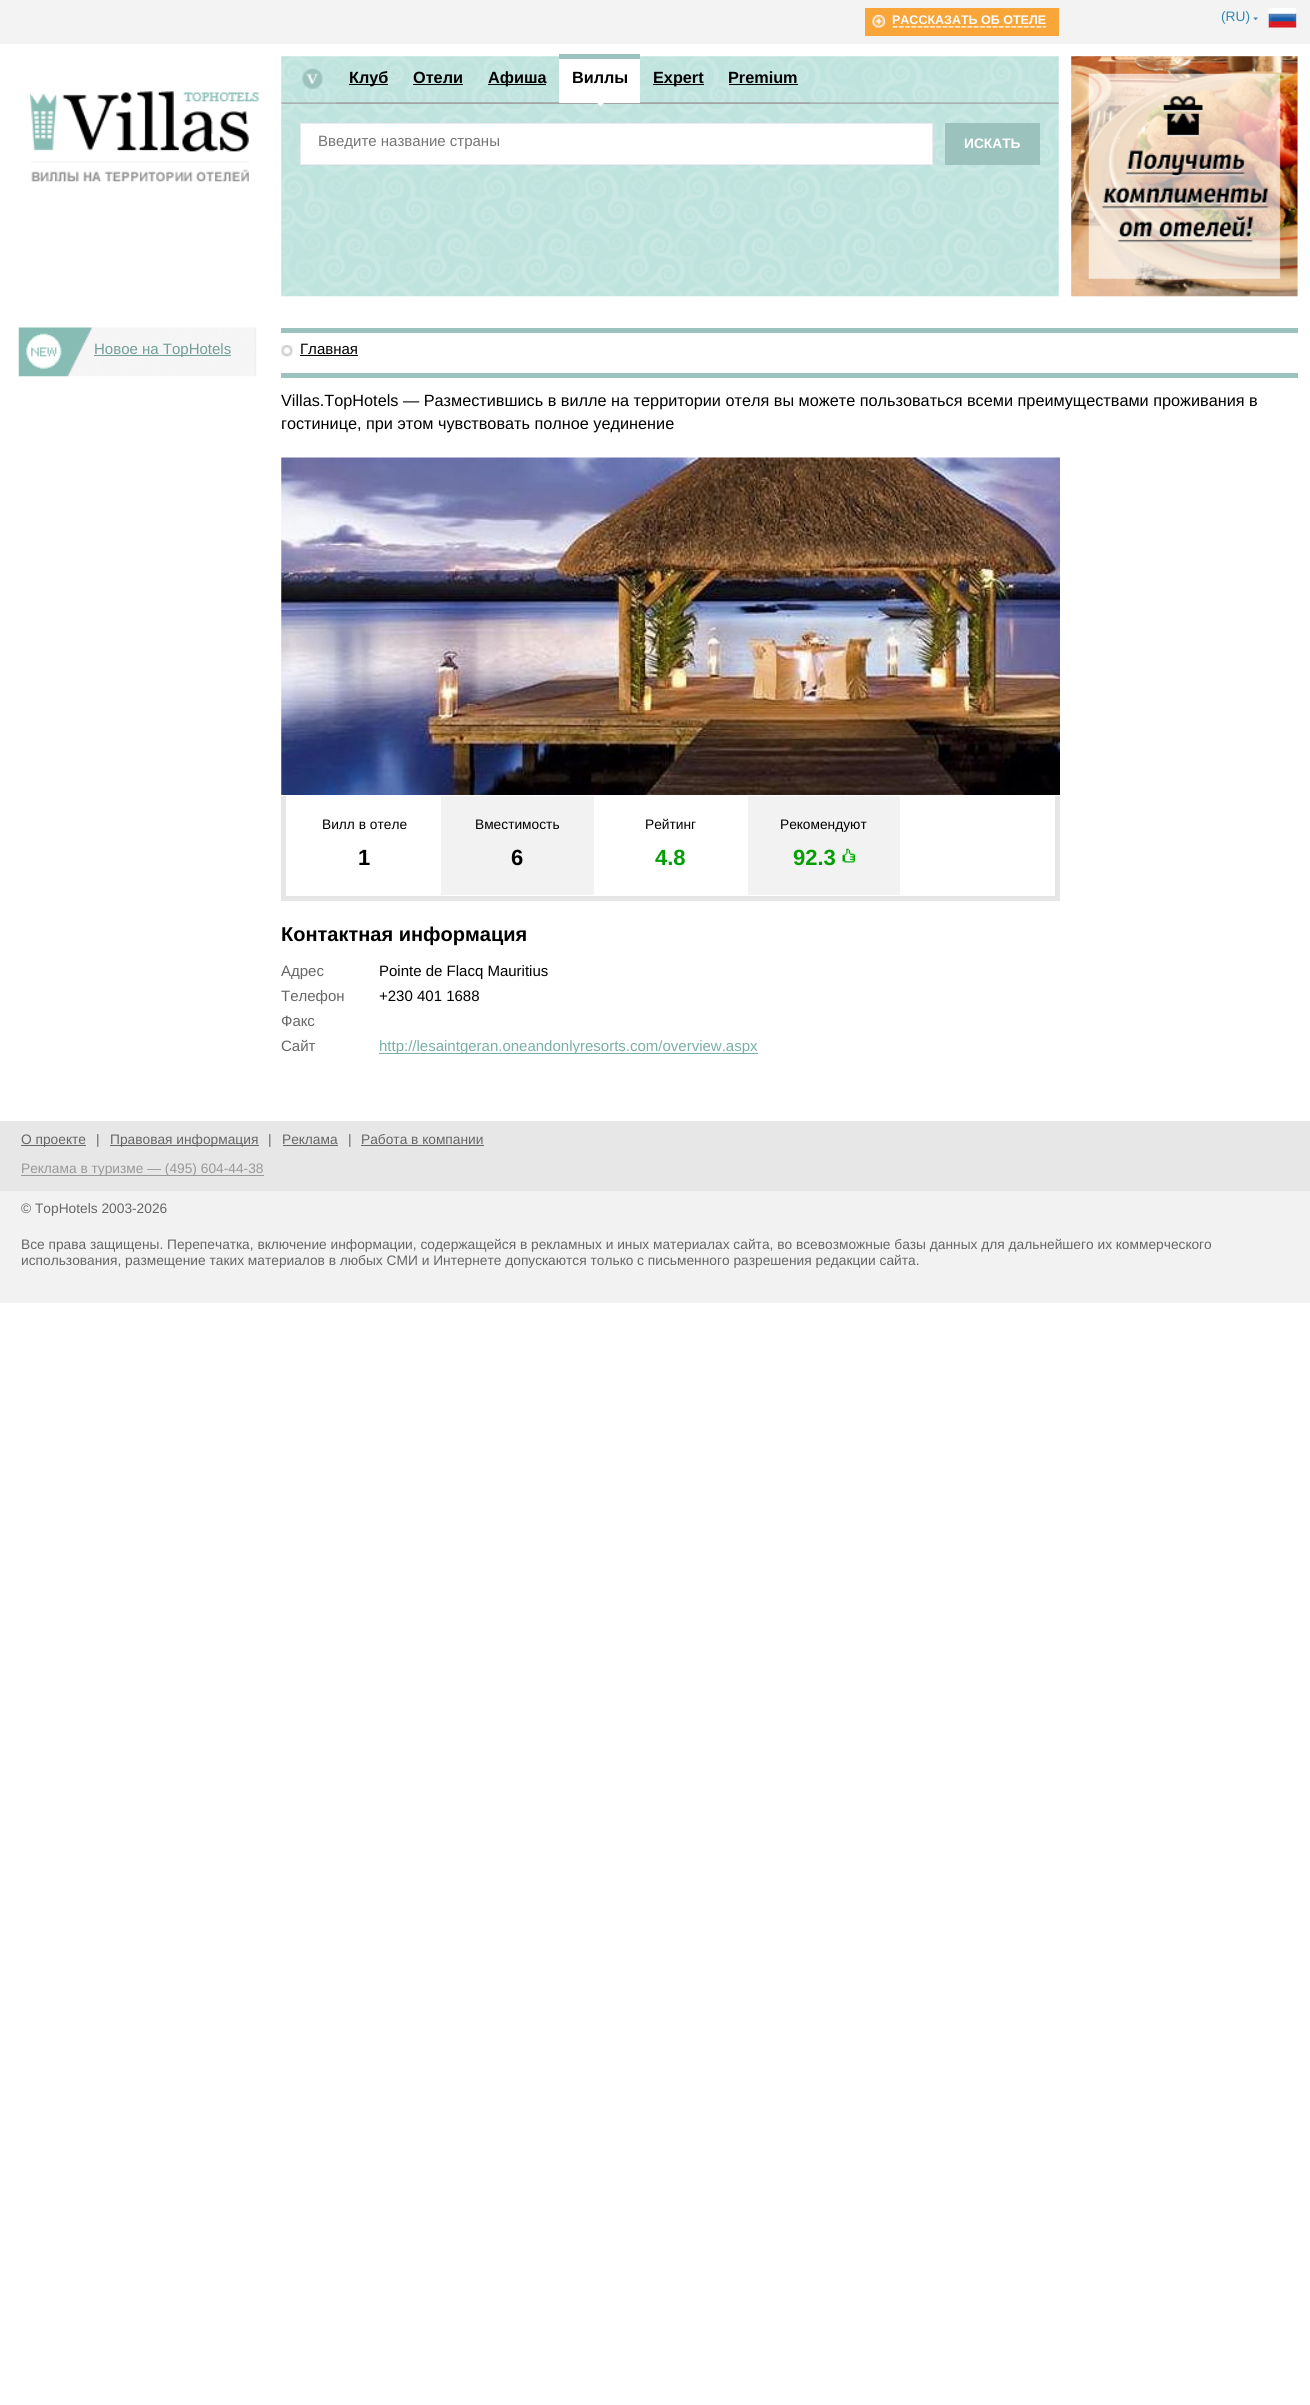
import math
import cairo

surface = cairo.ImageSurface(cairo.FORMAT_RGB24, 1310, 2405)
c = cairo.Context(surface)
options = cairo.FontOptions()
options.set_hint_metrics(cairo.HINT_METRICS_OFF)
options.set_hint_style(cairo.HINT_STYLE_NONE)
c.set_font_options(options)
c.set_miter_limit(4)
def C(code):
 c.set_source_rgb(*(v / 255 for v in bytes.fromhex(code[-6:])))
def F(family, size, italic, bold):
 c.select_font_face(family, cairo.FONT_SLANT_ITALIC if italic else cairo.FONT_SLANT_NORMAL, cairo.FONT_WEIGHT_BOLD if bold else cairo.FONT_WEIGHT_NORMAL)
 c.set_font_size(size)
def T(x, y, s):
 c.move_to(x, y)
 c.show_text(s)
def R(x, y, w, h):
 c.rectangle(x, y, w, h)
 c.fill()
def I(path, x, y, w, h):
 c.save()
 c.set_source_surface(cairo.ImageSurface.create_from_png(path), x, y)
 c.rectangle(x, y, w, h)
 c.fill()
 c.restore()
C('ffffff')
c.paint()
C('f3f3f3')
R(0,0,1310,44)
C('f8a53a')
R(865,8,194,28)
I('1.png',872,15,13,13)
I('2.png',892,26,155,2)
F('Liberation Sans',12.5,0,1)
C('ffffff')
T(892,24,'РАССКАЗАТЬ ОБ ОТЕЛЕ')
F('Liberation Sans',13.75,0,0)
C('3488b2')
T(1221,21,'(RU)')
I('3.png',1253,17,5,3)
I('4.png',1268,8,29,20)
I('5.png',30,91,229,91)
I('6.png',281,56,778,241)
I('7.png',281,102,778,2)
I('8.png',302,68,21,21)
I('9.png',336,102,64,2)
C('000000')
R(349,84,39,1)
F('Liberation Sans',16.25,0,1)
T(349,83,'Клуб')
I('10.png',400,102,75,2)
T(413,83,'Отели')
R(413,84,50,1)
I('11.png',475,102,84,2)
R(488,84,58,1)
T(488,83,'Афиша')
I('12.png',559,103,81,1)
C('ffffff')
R(559,59,81,44)
C('9bc2bc')
R(559,54,81,5)
C('000000')
T(572,83,'Виллы')
I('13.png',597,103,7,4)
I('14.png',640,102,77,2)
R(653,84,51,1)
T(653,83,'Expert')
I('15.png',716,102,94,2)
T(728,83,'Premium')
R(729,84,69,1)
C('ffffff')
c.rectangle(300.5,123.5,632,41)
c.fill_preserve()
C('eee8ef')
c.set_line_width(1)
c.stroke()
F('Liberation Sans',15,0,0)
C('757575')
T(318,146,'Введите название страны')
C('9bc2bc')
R(945,123,95,42)
F('Liberation Sans',13.75,0,1)
C('ffffff')
T(964,148,'ИСКАТЬ')
C('f0f0f0')
R(1071,56,227,240)
I('16.png',1072,56,225,241)
I('17.png',1071,56,227,241)
I('18.png',18,327,239,50)
C('729e97')
R(94,355,137,1)
F('Liberation Sans',15,0,0)
T(94,354,'Новое на TopHotels')
C('9bc2bc')
R(281,328,1017,5)
R(281,373,1017,5)
I('19.png',281,345,12,12)
C('000000')
T(300,354,'Главная')
R(300,355,58,1)
F('Liberation Sans',16.25,0,0)
T(281,406,'Villas.TopHotels — Разместившись в вилле на территории отеля вы можете пользоваться всеми преимуществами проживания в')
T(281,429,'гостинице, при этом чувствовать полное уединение')
I('20.png',281,457,779,338)
C('e6e6e6')
R(1055,796,5,105)
R(281,896,779,5)
R(281,796,5,105)
F('Liberation Sans',13.75,0,0)
C('000000')
T(322,829,'Вилл в отеле')
F('Liberation Sans',22,0,1)
T(358,865,'1')
C('f2f2f2')
R(441,796,153,99)
F('Liberation Sans',13.75,0,0)
C('000000')
T(475,829,'Вместимость')
F('Liberation Sans',22,0,1)
T(511,865,'6')
F('Liberation Sans',13.75,0,0)
T(645,829,'Рейтинг')
F('Liberation Sans',22,0,1)
C('059e05')
T(655,865,'4.8')
C('f2f2f2')
R(748,796,152,99)
F('Liberation Sans',13.75,0,0)
C('000000')
T(780,829,'Рекомендуют')
F('Liberation Sans',22,0,1)
C('059e05')
T(793,865,'92.3')
I('21.png',842,848,13,15)
F('Liberation Sans',20,0,1)
C('000000')
T(281,941,'Контактная информация')
F('Liberation Sans',15,0,0)
C('666666')
T(281,976,'Адрес')
C('000000')
T(379,976,'Pointe de Flacq Mauritius')
C('666666')
T(281,1001,'Телефон')
C('000000')
T(379,1001,'+230 401 1688')
C('666666')
T(281,1026,'Факс')
T(281,1051,'Сайт')
C('79afa6')
R(379,1053,379,1)
T(379,1051,'http://lesaintgeran.oneandonlyresorts.com/overview.aspx')
C('f2f2f2')
R(0,1191,1310,112)
C('e7e7e7')
R(0,1121,1310,70)
C('666666')
R(21,1145,65,1)
F('Liberation Sans',13.75,0,0)
T(21,1144,'О проекте')
T(96,1144,'|')
R(110,1145,149,1)
T(110,1144,'Правовая информация')
T(268,1144,'|')
T(282,1144,'Реклама')
R(283,1145,55,1)
T(348,1144,'|')
T(361,1144,'Работа в компании')
R(361,1145,123,1)
C('999999')
R(21,1175,243,1)
T(21,1173,'Реклама в туризме — (495) 604-44-38')
C('666666')
T(21,1213,'© TopHotels 2003-2026')
T(21,1249,'Все права защищены. Перепечатка, включение информации, содержащейся в рекламных и иных материалах сайта, во всевозможные базы данных для дальнейшего их коммерческого')
T(21,1265,'использования, размещение таких материалов в любых СМИ и Интернете допускаются только с письменного разрешения редакции сайта.')
surface.write_to_png('o.png')
